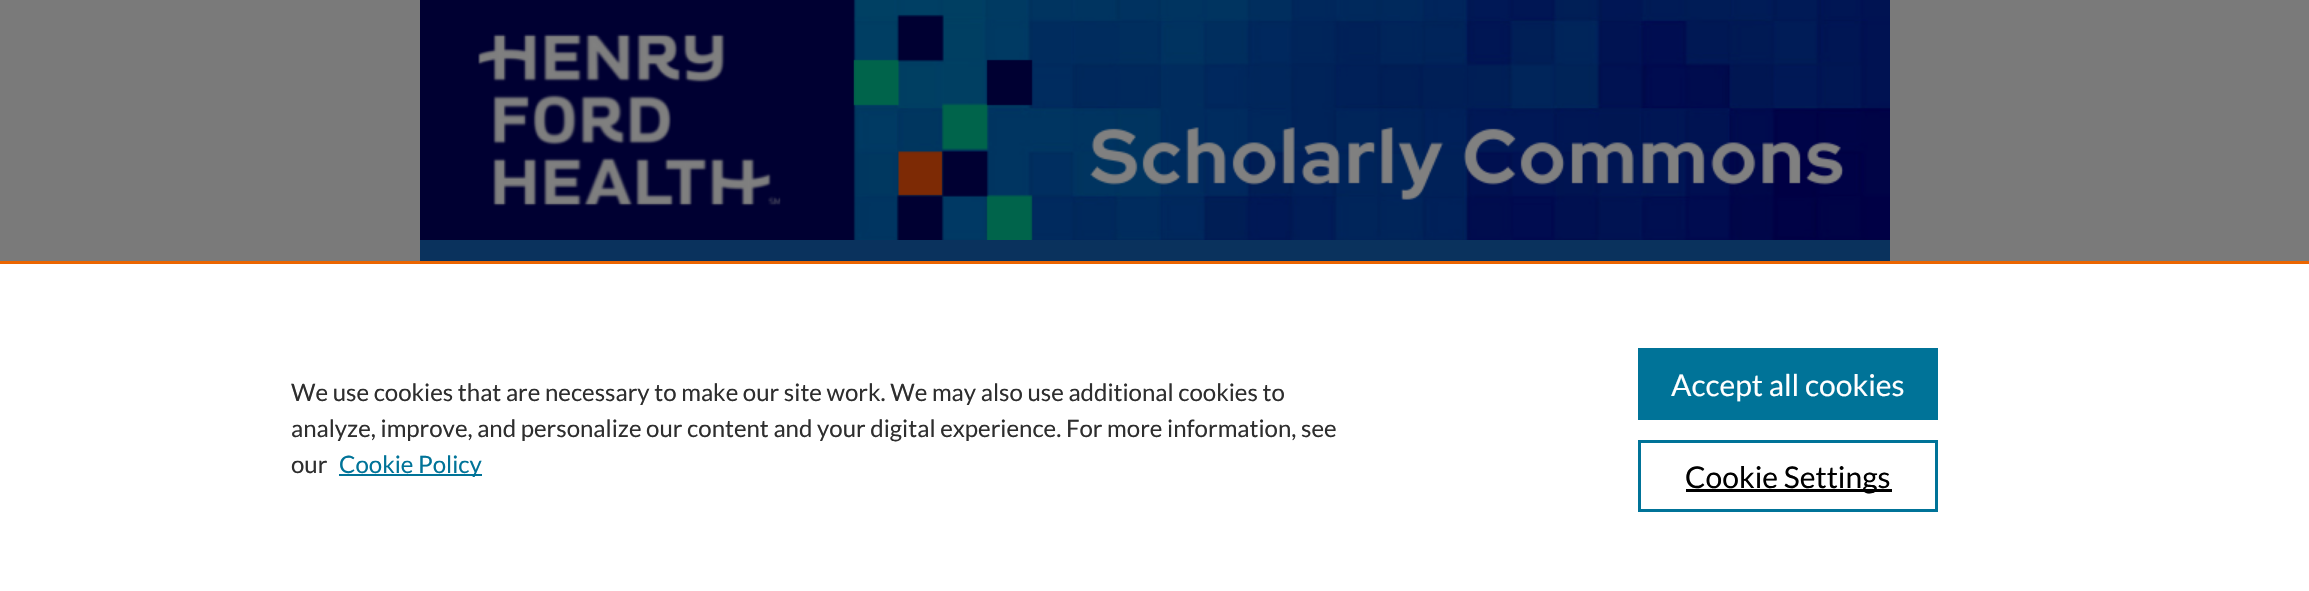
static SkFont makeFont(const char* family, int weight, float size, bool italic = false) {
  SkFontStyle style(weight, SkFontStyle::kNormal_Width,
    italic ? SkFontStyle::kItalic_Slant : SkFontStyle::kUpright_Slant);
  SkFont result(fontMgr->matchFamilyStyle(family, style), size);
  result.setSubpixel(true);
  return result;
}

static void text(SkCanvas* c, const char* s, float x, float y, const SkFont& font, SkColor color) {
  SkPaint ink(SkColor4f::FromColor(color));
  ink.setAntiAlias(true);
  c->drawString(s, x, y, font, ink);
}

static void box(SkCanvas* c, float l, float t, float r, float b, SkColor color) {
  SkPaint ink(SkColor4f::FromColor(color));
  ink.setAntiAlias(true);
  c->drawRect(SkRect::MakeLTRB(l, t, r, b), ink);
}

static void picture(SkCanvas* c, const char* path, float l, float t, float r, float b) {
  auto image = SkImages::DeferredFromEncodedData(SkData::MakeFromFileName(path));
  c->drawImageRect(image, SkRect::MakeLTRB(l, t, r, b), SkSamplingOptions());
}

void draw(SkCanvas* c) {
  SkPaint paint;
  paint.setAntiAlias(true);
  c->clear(0xff7a7a7a);
  picture(c, "img_01.png", 420, 0, 1890, 240);
  box(c, 853, 0, 854, 240, 0x80000032);
  box(c, 420, 240, 1890, 261, 0xff0a325d);
  box(c, 0, 264, 2309, 591, 0xffffffff);
  box(c, 0, 261, 2309, 264, 0xffeb6500);
  SkFont face1 = makeFont("Lato", 400, 24);
  text(c, "We use cookies that are necessary to make our site work. We may also use additional cookies to", 291, 401, face1, 0xff2e2e2e);
  text(c, "analyze, improve, and personalize our content and your digital experience. For more information, see", 291, 437, face1, 0xff2e2e2e);
  text(c, "our", 291, 473, face1, 0xff2e2e2e);
  box(c, 339, 474, 482, 476, 0xff007398);
  text(c, "Cookie Policy", 339, 473, face1, 0xff007398);
  box(c, 1638, 348, 1938, 420, 0xff007398);
  SkFont face2 = makeFont("Lato", 400, 30);
  text(c, "Accept all cookies", 1671, 396, face2, 0xffffffff);
  paint.setStyle(SkPaint::kStroke_Style);
  paint.setStrokeWidth(3);
  paint.setColor(0xff007398);
  c->drawRect(SkRect::MakeLTRB(1639.5f, 441.5f, 1936.5f, 510.5f), paint);
  box(c, 1686, 489, 1892, 492, 0xff000000);
  text(c, "Cookie Settings", 1685, 488, face2, 0xff000000);
}
